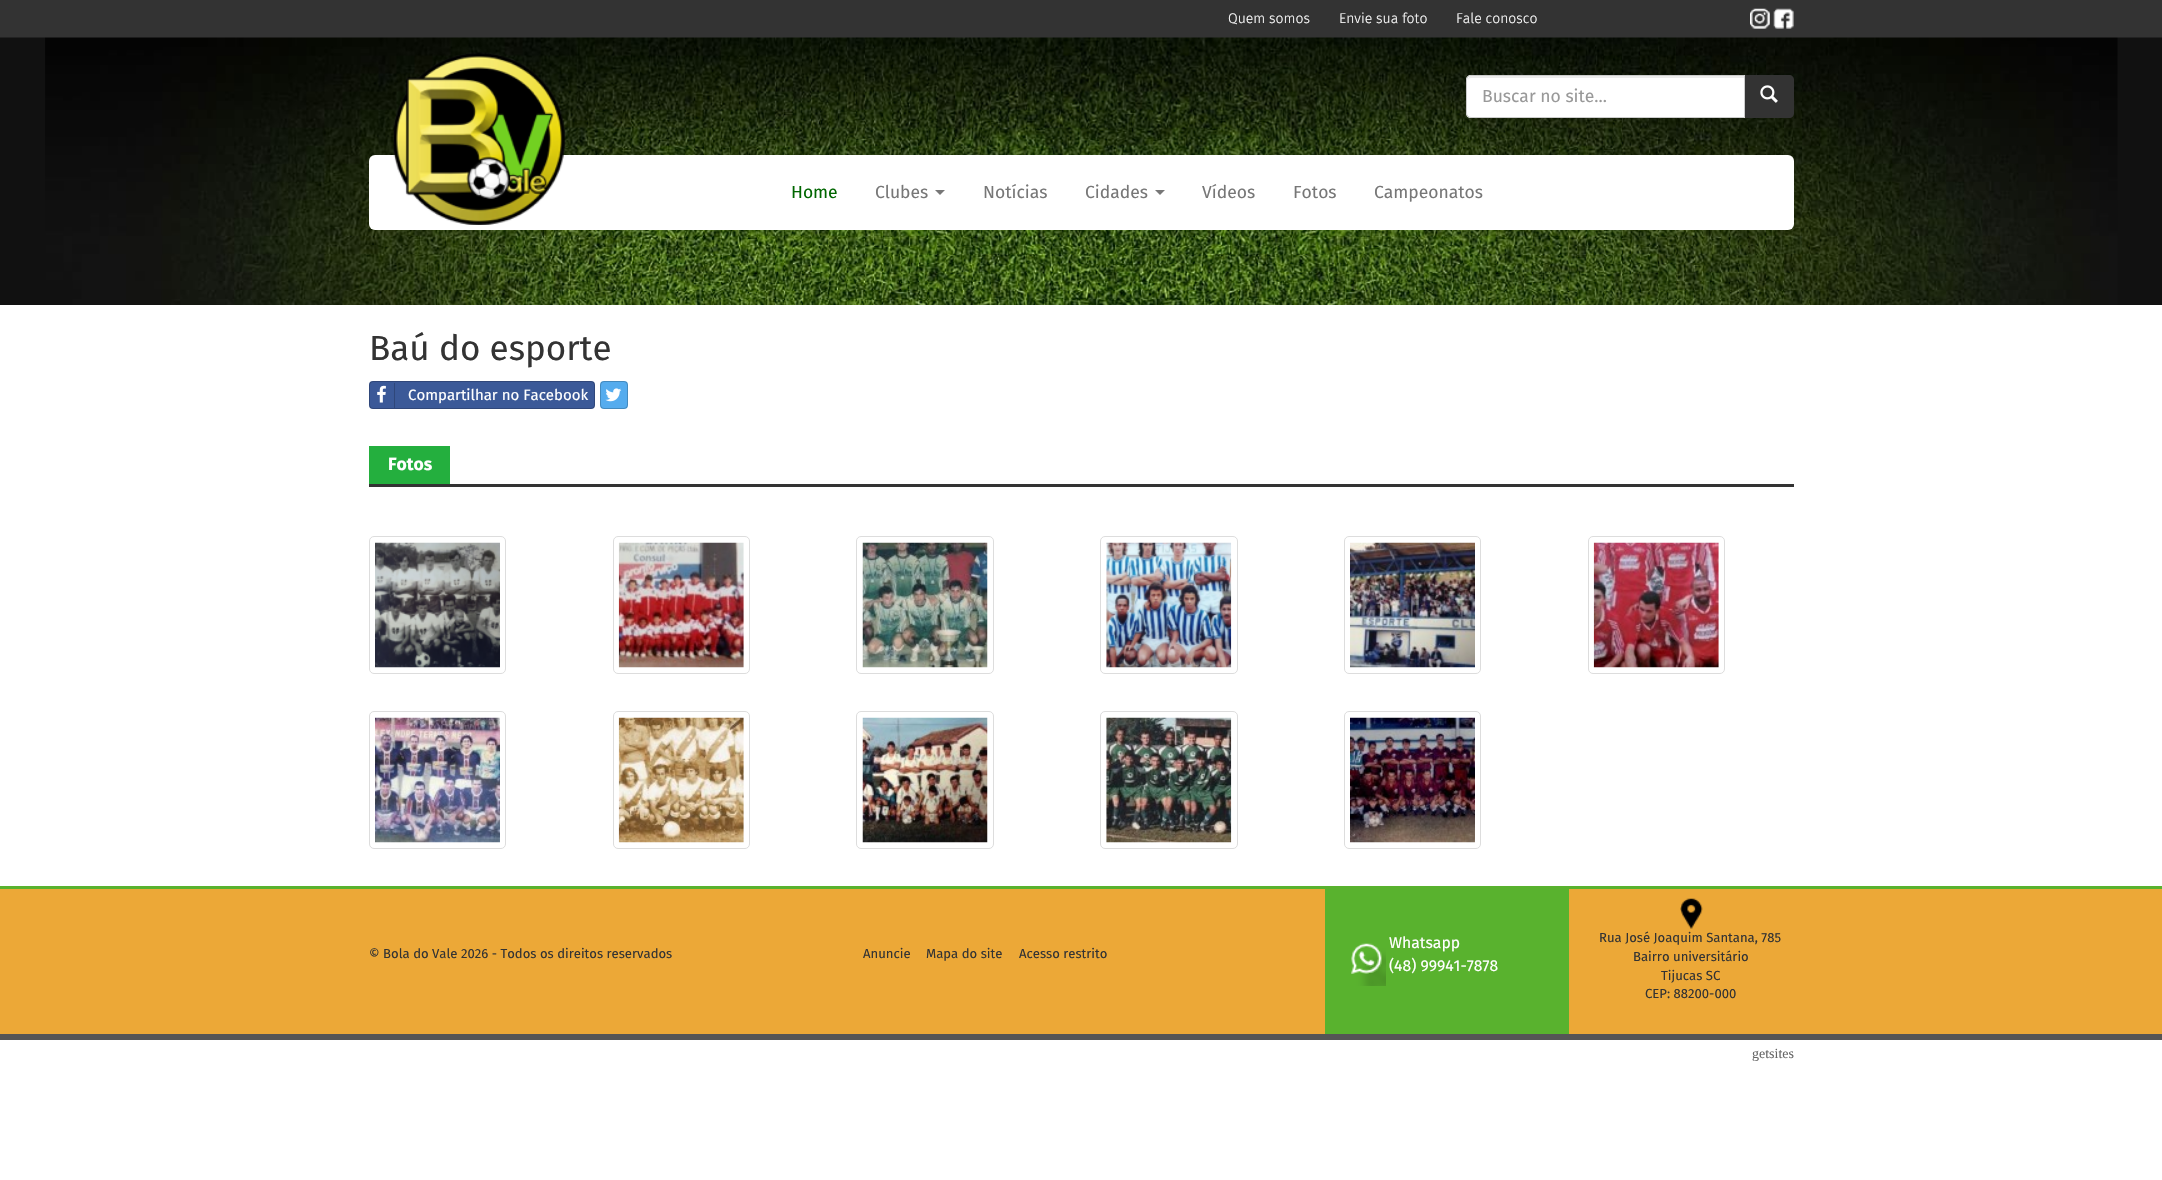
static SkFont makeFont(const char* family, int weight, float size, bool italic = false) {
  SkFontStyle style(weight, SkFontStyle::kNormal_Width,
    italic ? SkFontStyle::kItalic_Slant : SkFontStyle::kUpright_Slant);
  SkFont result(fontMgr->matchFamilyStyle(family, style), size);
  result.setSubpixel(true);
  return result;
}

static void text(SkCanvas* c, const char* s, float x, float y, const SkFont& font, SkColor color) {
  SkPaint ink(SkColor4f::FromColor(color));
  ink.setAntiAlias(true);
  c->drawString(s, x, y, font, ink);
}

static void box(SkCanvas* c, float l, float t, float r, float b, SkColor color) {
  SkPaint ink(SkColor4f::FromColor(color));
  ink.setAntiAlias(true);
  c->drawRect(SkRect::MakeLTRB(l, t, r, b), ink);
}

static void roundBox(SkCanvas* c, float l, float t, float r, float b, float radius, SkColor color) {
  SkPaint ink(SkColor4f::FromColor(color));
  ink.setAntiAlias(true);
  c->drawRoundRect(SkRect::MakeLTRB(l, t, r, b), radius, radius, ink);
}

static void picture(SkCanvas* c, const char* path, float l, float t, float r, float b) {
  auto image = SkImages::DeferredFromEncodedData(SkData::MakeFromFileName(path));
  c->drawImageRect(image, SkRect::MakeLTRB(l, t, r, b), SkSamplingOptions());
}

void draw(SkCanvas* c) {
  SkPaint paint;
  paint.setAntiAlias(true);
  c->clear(0xffffffff);
  box(c, 0, 0, 2162, 38, 0xff333333);
  SkFont face1 = makeFont("Fira Sans", 300, 14);
  text(c, "Quem somos", 1228, 23, face1, 0xffffffff);
  text(c, "Envie sua foto", 1339, 23, face1, 0xffffffff);
  text(c, "Fale conosco", 1456, 23, face1, 0xffffffff);
  picture(c, "img_01.png", 1750, 8, 1770, 29);
  picture(c, "img_02.png", 1773, 8, 1794, 29);
  picture(c, "img_03.png", 0, 37, 2162, 305);
  roundBox(c, 369, 155, 1794, 230, 6, 0xffffffff);
  picture(c, "img_04.png", 393, 52, 566, 225);
  paint.setColor(0xff333333);
  c->drawPath(SkPathBuilder().moveTo(1744, 75).lineTo(1789, 75).cubicTo(1792, 75, 1794, 77, 1794, 80).lineTo(1794, 113).cubicTo(1794, 116, 1792, 118, 1789, 118).lineTo(1744, 118).close().detach(), paint);
  paint.setColor(0xffffffff);
  c->drawPath(SkPathBuilder().moveTo(1471, 75).lineTo(1745, 75).lineTo(1745, 118).lineTo(1471, 118).cubicTo(1468, 118, 1466, 116, 1466, 113).lineTo(1466, 80).cubicTo(1466, 77, 1468, 75, 1471, 75).close().detach(), paint);
  paint.setColor(0xffececec);
  c->drawPath(SkPathBuilder().moveTo(1471, 78).lineTo(1744, 78).lineTo(1744, 76).lineTo(1472, 76).cubicTo(1469, 76, 1468, 78, 1468, 81).cubicTo(1468, 79, 1469, 78, 1471, 78).close().detach(), paint);
  paint.setStyle(SkPaint::kStroke_Style);
  paint.setStrokeWidth(1);
  paint.setColor(0xffcccccc);
  c->drawPath(SkPathBuilder().moveTo(1471, 75.5f).lineTo(1744.5f, 75.5f).lineTo(1744.5f, 117.5f).lineTo(1471, 117.5f).cubicTo(1468.5f, 117.5f, 1466.5f, 115.5f, 1466.5f, 113).lineTo(1466.5f, 80).cubicTo(1466.5f, 77.5f, 1468.5f, 75.5f, 1471, 75.5f).close().detach(), paint);
  SkFont face2 = makeFont("Fira Sans", 400, 17.5f);
  text(c, "Buscar no site...", 1482, 102, face2, 0xff999999);
  picture(c, "img_05.png", 1760, 85, 1778, 103);
  text(c, "Home", 791, 198, face2, 0xff006600);
  text(c, "Clubes", 875, 198, face2, 0xff777777);
  paint.setStyle(SkPaint::kFill_Style);
  paint.setColor(0xff777777);
  c->drawPath(SkPathBuilder().moveTo(935, 190).lineTo(945, 190).lineTo(940, 195).close().detach(), paint);
  text(c, "Notícias", 983, 198, face2, 0xff777777);
  text(c, "Cidades", 1085, 198, face2, 0xff777777);
  c->drawPath(SkPathBuilder().moveTo(1155, 190).lineTo(1165, 190).lineTo(1160, 195).close().detach(), paint);
  text(c, "Vídeos", 1202, 198, face2, 0xff777777);
  text(c, "Fotos", 1293, 198, face2, 0xff777777);
  text(c, "Campeonatos", 1374, 198, face2, 0xff777777);
  SkFont face3 = makeFont("Fira Sans", 400, 35);
  text(c, "Baú do esporte", 369, 360, face3, 0xff333333);
  roundBox(c, 369, 381, 595, 409, 4, 0xff3b5998);
  paint.setStyle(SkPaint::kStroke_Style);
  paint.setColor(0x33000000);
  c->drawRoundRect(SkRect::MakeLTRB(369.5f, 381.5f, 594.5f, 408.5f), 3.5f, 3.5f, paint);
  box(c, 394, 383, 395, 408, 0xff2f477a);
  picture(c, "img_06.png", 377, 385, 386, 403);
  SkFont face4 = makeFont("Fira Sans", 400, 15);
  text(c, "Compartilhar no Facebook", 408, 400, face4, 0xffffffff);
  roundBox(c, 600, 381, 628, 409, 4, 0xff55acee);
  c->drawRoundRect(SkRect::MakeLTRB(600.5f, 381.5f, 627.5f, 408.5f), 3.5f, 3.5f, paint);
  picture(c, "img_07.png", 605, 388, 622, 402);
  box(c, 369, 484, 1794, 487, 0xff333333);
  box(c, 369, 446, 450, 484, 0xff24af3e);
  SkFont face5 = makeFont("Fira Sans", 700, 17.5f);
  text(c, "Fotos", 388, 470, face5, 0xffffffff);
  paint.setColor(0xffdddddd);
  c->drawRoundRect(SkRect::MakeLTRB(369.5f, 536.5f, 505.5f, 673.5f), 4.5f, 4.5f, paint);
  picture(c, "img_08.png", 375, 542, 500, 668);
  c->drawRoundRect(SkRect::MakeLTRB(613.5f, 536.5f, 749.5f, 673.5f), 4.5f, 4.5f, paint);
  picture(c, "img_09.png", 618, 542, 744, 668);
  c->drawRoundRect(SkRect::MakeLTRB(856.5f, 536.5f, 993.5f, 673.5f), 4.5f, 4.5f, paint);
  picture(c, "img_10.png", 862, 542, 988, 668);
  c->drawRoundRect(SkRect::MakeLTRB(1100.5f, 536.5f, 1237.5f, 673.5f), 4.5f, 4.5f, paint);
  picture(c, "img_11.png", 1106, 542, 1232, 668);
  c->drawRoundRect(SkRect::MakeLTRB(1344.5f, 536.5f, 1480.5f, 673.5f), 4.5f, 4.5f, paint);
  picture(c, "img_12.png", 1350, 542, 1475, 668);
  c->drawRoundRect(SkRect::MakeLTRB(1588.5f, 536.5f, 1724.5f, 673.5f), 4.5f, 4.5f, paint);
  picture(c, "img_13.png", 1593, 542, 1719, 668);
  c->drawRoundRect(SkRect::MakeLTRB(369.5f, 711.5f, 505.5f, 848.5f), 4.5f, 4.5f, paint);
  picture(c, "img_14.png", 375, 717, 500, 843);
  c->drawRoundRect(SkRect::MakeLTRB(613.5f, 711.5f, 749.5f, 848.5f), 4.5f, 4.5f, paint);
  picture(c, "img_15.png", 618, 717, 744, 843);
  c->drawRoundRect(SkRect::MakeLTRB(856.5f, 711.5f, 993.5f, 848.5f), 4.5f, 4.5f, paint);
  picture(c, "img_16.png", 862, 717, 988, 843);
  c->drawRoundRect(SkRect::MakeLTRB(1100.5f, 711.5f, 1237.5f, 848.5f), 4.5f, 4.5f, paint);
  picture(c, "img_17.png", 1106, 717, 1232, 843);
  c->drawRoundRect(SkRect::MakeLTRB(1344.5f, 711.5f, 1480.5f, 848.5f), 4.5f, 4.5f, paint);
  picture(c, "img_18.png", 1350, 717, 1475, 843);
  box(c, 0, 889, 2162, 1034, 0xffeca837);
  box(c, 0, 886, 2162, 889, 0xff59b22e);
  box(c, 0, 1034, 2162, 1040, 0xff555555);
  SkFont face6 = makeFont("Fira Sans", 400, 13.1f);
  text(c, "© Bola do Vale 2026 - Todos os direitos reservados", 369, 958, face6, 0xff333333);
  text(c, "Anuncie", 863, 958, face6, 0xff333333);
  text(c, "Mapa do site", 926, 958, face6, 0xff333333);
  text(c, "Acesso restrito", 1019, 958, face6, 0xff333333);
  box(c, 1325, 889, 1569, 1034, 0xff59b22e);
  picture(c, "img_19.png", 1351, 943, 1386, 986);
  SkFont face7 = makeFont("Fira Sans", 400, 15.75f);
  text(c, "Whatsapp", 1389, 948, face7, 0xffffffff);
  text(c, "(48) 99941-7878", 1389, 971, face7, 0xffffffff);
  picture(c, "img_20.png", 1680, 898, 1703, 929);
  text(c, "Rua José Joaquim Santana, 785", 1599, 942, face6, 0xff333333);
  text(c, "Bairro universitário", 1633, 961, face6, 0xff333333);
  text(c, "Tijucas SC", 1661, 980, face6, 0xff333333);
  text(c, "CEP: 88200-000", 1645, 998, face6, 0xff333333);
  SkFont face8 = makeFont("Liberation Serif", 400, 14);
  text(c, "getsites", 1752, 1058, face8, 0xff666666);
}
